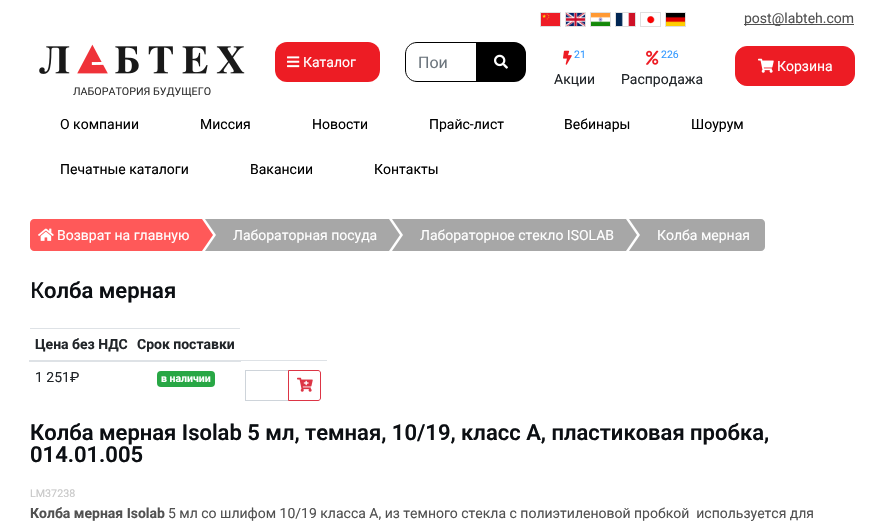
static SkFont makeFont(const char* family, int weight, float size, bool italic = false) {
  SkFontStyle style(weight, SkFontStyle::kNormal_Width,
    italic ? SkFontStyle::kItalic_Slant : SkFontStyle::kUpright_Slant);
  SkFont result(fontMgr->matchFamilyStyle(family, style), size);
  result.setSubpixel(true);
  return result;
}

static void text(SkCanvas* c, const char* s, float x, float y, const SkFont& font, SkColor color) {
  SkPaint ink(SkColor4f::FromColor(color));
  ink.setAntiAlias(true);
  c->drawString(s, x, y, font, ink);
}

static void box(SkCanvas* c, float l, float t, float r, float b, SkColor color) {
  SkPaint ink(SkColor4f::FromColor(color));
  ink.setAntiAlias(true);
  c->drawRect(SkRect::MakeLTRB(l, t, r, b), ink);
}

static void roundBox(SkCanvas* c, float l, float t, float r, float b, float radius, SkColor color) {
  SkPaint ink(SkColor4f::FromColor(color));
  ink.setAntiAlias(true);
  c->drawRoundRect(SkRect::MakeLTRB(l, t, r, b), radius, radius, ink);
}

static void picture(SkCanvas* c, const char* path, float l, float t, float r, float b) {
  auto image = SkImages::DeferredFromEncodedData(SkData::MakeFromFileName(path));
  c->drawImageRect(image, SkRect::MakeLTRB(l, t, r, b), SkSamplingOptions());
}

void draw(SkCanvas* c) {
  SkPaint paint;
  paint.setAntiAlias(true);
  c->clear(0xffffffff);
  paint.setStyle(SkPaint::kStroke_Style);
  paint.setStrokeWidth(1);
  paint.setColor(0xffdfdfdf);
  c->drawRect(SkRect::MakeLTRB(540.5f, 12.5f, 560.5f, 26.5f), paint);
  c->drawRect(SkRect::MakeLTRB(565.5f, 12.5f, 585.5f, 26.5f), paint);
  c->drawRect(SkRect::MakeLTRB(590.5f, 12.5f, 610.5f, 26.5f), paint);
  c->drawRect(SkRect::MakeLTRB(615.5f, 12.5f, 635.5f, 26.5f), paint);
  c->drawRect(SkRect::MakeLTRB(640.5f, 12.5f, 660.5f, 26.5f), paint);
  c->drawRect(SkRect::MakeLTRB(665.5f, 12.5f, 685.5f, 26.5f), paint);
  picture(c, "img_01.png", 541, 13, 560, 26);
  picture(c, "img_02.png", 566, 13, 585, 26);
  picture(c, "img_03.png", 591, 13, 610, 26);
  picture(c, "img_04.png", 616, 13, 635, 26);
  picture(c, "img_05.png", 647, 16, 655, 24);
  picture(c, "img_06.png", 666, 13, 685, 26);
  box(c, 744, 24, 854, 25, 0xff515151);
  SkFont face1 = makeFont("Roboto", 400, 14);
  text(c, "post@labteh.com", 744, 23, face1, 0xff515151);
  roundBox(c, 275, 42, 380, 82, 12, 0xffed1c24);
  picture(c, "img_07.png", 287, 56, 300, 68);
  text(c, "Каталог", 303, 67, face1, 0xffffffff);
  paint.setStyle(SkPaint::kFill_Style);
  paint.setColor(0xff000000);
  c->drawPath(SkPathBuilder().moveTo(477, 43).lineTo(514, 43).cubicTo(520, 43, 525, 48, 525, 54).lineTo(525, 70).cubicTo(525, 76, 520, 81, 514, 81).lineTo(477, 81).close().detach(), paint);
  paint.setStyle(SkPaint::kStroke_Style);
  paint.setStrokeWidth(2);
  c->drawPath(SkPathBuilder().moveTo(477, 43).lineTo(514, 43).cubicTo(520, 43, 525, 48, 525, 54).lineTo(525, 70).cubicTo(525, 76, 520, 81, 514, 81).lineTo(477, 81).close().detach(), paint);
  paint.setStrokeWidth(1);
  c->drawPath(SkPathBuilder().moveTo(417, 42.5f).lineTo(476.5f, 42.5f).lineTo(476.5f, 81.5f).lineTo(417, 81.5f).cubicTo(410.5f, 81.5f, 405.5f, 76.5f, 405.5f, 70).lineTo(405.5f, 54).cubicTo(405.5f, 47.5f, 410.5f, 42.5f, 417, 42.5f).close().detach(), paint);
  SkFont face2 = makeFont("Roboto", 400, 16);
  text(c, "Пои", 418, 68, face2, 0xff6c757d);
  picture(c, "img_08.png", 494, 54, 508, 69);
  picture(c, "img_09.png", 563, 50, 572, 65);
  SkFont face3 = makeFont("Roboto", 400, 10.5f);
  text(c, "21", 574, 58, face3, 0xff3399ff);
  text(c, "Акции", 554, 84, face1, 0xff212529);
  picture(c, "img_10.png", 646, 50, 659, 65);
  text(c, "226", 661, 58, face3, 0xff3399ff);
  text(c, "Распродажа", 621, 84, face1, 0xff212529);
  paint.setStyle(SkPaint::kFill_Style);
  paint.setColor(0xffed1c24);
  c->drawRoundRect(SkRect::MakeLTRB(735.5f, 46.5f, 854.5f, 85.5f), 11.5f, 11.5f, paint);
  paint.setStyle(SkPaint::kStroke_Style);
  c->drawRoundRect(SkRect::MakeLTRB(735.5f, 46.5f, 854.5f, 85.5f), 11.5f, 11.5f, paint);
  picture(c, "img_11.png", 758, 58, 774, 73);
  text(c, "Корзина", 777, 71, face1, 0xffffffff);
  picture(c, "img_12.png", 39, 44, 245, 74);
  SkFont face4 = makeFont("Roboto", 400, 10.7f);
  text(c, "ЛАБОРАТОРИЯ БУДУЩЕГО", 73, 95, face4, 0xff323232);
  text(c, "О компании", 60, 129, face1, 0xff000000);
  text(c, "Миссия", 200, 129, face1, 0xff000000);
  text(c, "Новости", 312, 129, face1, 0xff000000);
  text(c, "Прайс-лист", 429, 129, face1, 0xff000000);
  text(c, "Вебинары", 564, 129, face1, 0xff000000);
  text(c, "Шоурум", 691, 129, face1, 0xff000000);
  text(c, "Печатные каталоги", 60, 174, face1, 0xff000000);
  text(c, "Вакансии", 250, 174, face1, 0xff000000);
  text(c, "Контакты", 374, 174, face1, 0xff000000);
  paint.setStyle(SkPaint::kFill_Style);
  paint.setColor(0xffff5959);
  c->drawPath(SkPathBuilder().moveTo(34, 219).lineTo(202, 219).lineTo(202, 251).lineTo(34, 251).cubicTo(32, 251, 30, 249, 30, 247).lineTo(30, 223).cubicTo(30, 221, 32, 219, 34, 219).close().detach(), paint);
  picture(c, "img_13.png", 38, 228, 54, 241);
  text(c, "Возврат на главную", 57, 240, face1, 0xffffffff);
  c->drawPath(SkPathBuilder().moveTo(202, 251).lineTo(202, 219).lineTo(213, 235).close().detach(), paint);
  box(c, 227, 219, 389, 251, 0xffa7a7a7);
  paint.setColor(0xffa7a7a7);
  c->drawPath(SkPathBuilder().moveTo(205, 219).lineTo(227, 219).lineTo(216, 235).close().detach(), paint);
  box(c, 216, 219, 227, 251, 0xffa7a7a7);
  c->drawPath(SkPathBuilder().moveTo(227, 251).lineTo(205, 251).lineTo(216, 235).close().detach(), paint);
  text(c, "Лабораторная посуда", 233, 240, face1, 0xffffffff);
  c->drawPath(SkPathBuilder().moveTo(389, 251).lineTo(389, 219).lineTo(400, 235).close().detach(), paint);
  box(c, 414, 219, 626, 251, 0xffa7a7a7);
  c->drawPath(SkPathBuilder().moveTo(392, 219).lineTo(414, 219).lineTo(403, 235).close().detach(), paint);
  box(c, 403, 219, 414, 251, 0xffa7a7a7);
  c->drawPath(SkPathBuilder().moveTo(414, 251).lineTo(392, 251).lineTo(403, 235).close().detach(), paint);
  text(c, "Лабораторное стекло ISOLAB", 420, 240, face1, 0xffffffff);
  c->drawPath(SkPathBuilder().moveTo(626, 251).lineTo(626, 219).lineTo(637, 235).close().detach(), paint);
  c->drawPath(SkPathBuilder().moveTo(649, 219).lineTo(761, 219).cubicTo(763, 219, 765, 221, 765, 223).lineTo(765, 247).cubicTo(765, 249, 763, 251, 761, 251).lineTo(649, 251).close().detach(), paint);
  c->drawPath(SkPathBuilder().moveTo(629, 219).lineTo(651, 219).lineTo(640, 235).close().detach(), paint);
  box(c, 640, 222, 649, 251, 0xffa7a7a7);
  c->drawPath(SkPathBuilder().moveTo(651, 251).lineTo(629, 251).lineTo(640, 235).close().detach(), paint);
  text(c, "Колба мерная", 657, 240, face1, 0xffffffff);
  SkFont face5 = makeFont("Noto Sans", 500, 22);
  text(c, "К", 30, 298, face5, 0xff0c0f13);
  SkFont face6 = makeFont("Roboto", 600, 22);
  text(c, "олба мерная", 44, 298, face6, 0xff0c0f13);
  SkFont face7 = makeFont("Roboto", 700, 14);
  text(c, "Цена без НДС", 35, 349, face7, 0xff212529);
  box(c, 30, 328, 240, 329, 0xffdee2e6);
  box(c, 239, 360, 327, 361, 0xffdee2e6);
  box(c, 29, 360, 241, 362, 0xffdee2e6);
  text(c, "Срок поставки", 137, 349, face7, 0xff212529);
  text(c, "1 251₽", 35, 382, face1, 0xff212529);
  roundBox(c, 157, 371, 215, 387, 4, 0xff28a745);
  SkFont face8 = makeFont("Roboto", 700, 10.5f);
  text(c, "в наличии", 161, 382, face8, 0xffffffff);
  paint.setStyle(SkPaint::kStroke_Style);
  paint.setColor(0xffced4da);
  c->drawRect(SkRect::MakeLTRB(245.5f, 370.5f, 288.5f, 400.5f), paint);
  paint.setColor(0xffdc3545);
  c->drawPath(SkPathBuilder().moveTo(288.5f, 370.5f).lineTo(318, 370.5f).cubicTo(319.5f, 370.5f, 320.5f, 371.5f, 320.5f, 373).lineTo(320.5f, 398).cubicTo(320.5f, 399.5f, 319.5f, 400.5f, 318, 400.5f).lineTo(288.5f, 400.5f).close().detach(), paint);
  picture(c, "img_14.png", 297, 377, 313, 392);
  text(c, "Колба мерная Isolab 5 мл, темная, 10/19, класс А, пластиковая пробка,", 30, 440, face6, 0xff0c0f13);
  text(c, "014.01.005", 30, 462, face6, 0xff0c0f13);
  text(c, "LM37238", 30, 497, face4, 0xffc7c7c7);
  text(c, "Колба мерная Isolab", 30, 518, face7, 0xff515151);
  text(c, "5 мл со шлифом 10/19 класса А, из темного стекла с полиэтиленовой пробкой  используется для", 168, 518, face1, 0xff515151);
}
